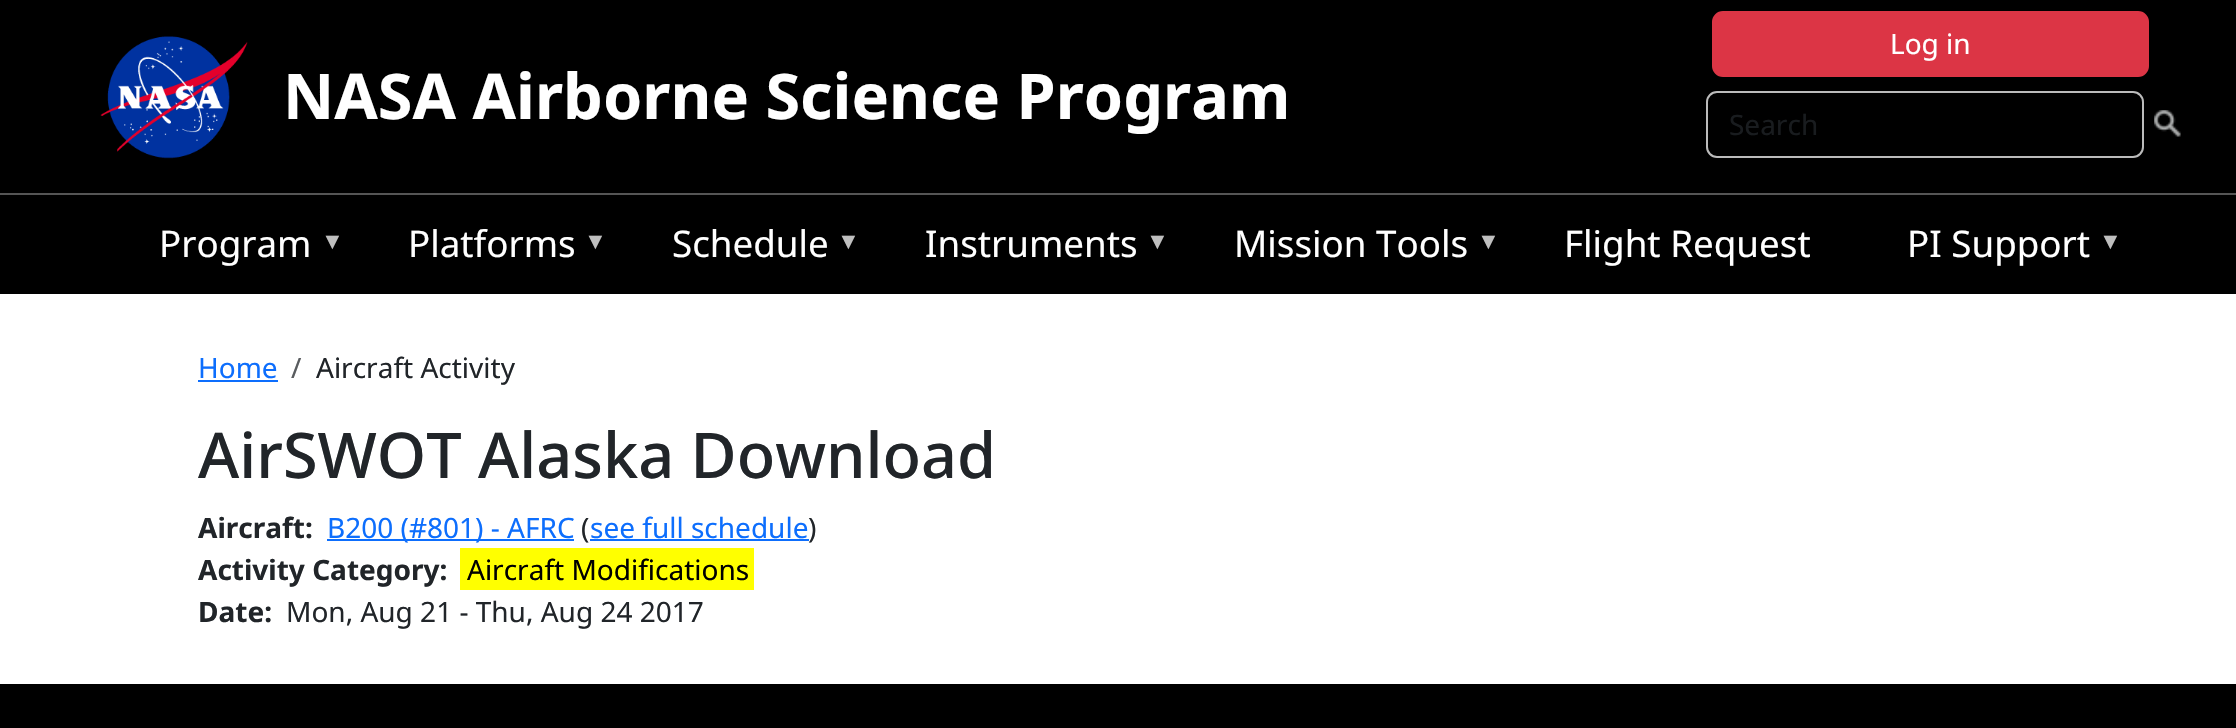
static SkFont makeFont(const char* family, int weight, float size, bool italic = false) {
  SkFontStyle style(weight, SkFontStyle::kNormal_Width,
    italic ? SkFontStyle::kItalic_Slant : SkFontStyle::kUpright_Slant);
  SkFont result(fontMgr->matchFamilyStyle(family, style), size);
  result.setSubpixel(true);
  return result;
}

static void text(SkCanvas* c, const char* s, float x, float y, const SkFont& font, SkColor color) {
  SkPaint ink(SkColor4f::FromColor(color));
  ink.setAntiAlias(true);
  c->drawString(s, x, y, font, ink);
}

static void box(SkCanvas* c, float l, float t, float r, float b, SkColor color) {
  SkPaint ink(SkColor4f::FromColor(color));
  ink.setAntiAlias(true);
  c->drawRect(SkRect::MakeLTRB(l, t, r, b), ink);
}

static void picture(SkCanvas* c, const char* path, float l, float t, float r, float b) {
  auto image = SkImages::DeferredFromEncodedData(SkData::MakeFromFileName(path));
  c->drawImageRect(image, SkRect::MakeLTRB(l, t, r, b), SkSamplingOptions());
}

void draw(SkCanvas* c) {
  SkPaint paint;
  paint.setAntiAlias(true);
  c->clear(0xffffffff);
  box(c, 0, 0, 2236, 193, 0xff000000);
  paint.setColor(0xffdc3545);
  c->drawRoundRect(SkRect::MakeLTRB(1713, 12, 2148, 76), 10, 10, paint);
  paint.setStyle(SkPaint::kStroke_Style);
  paint.setStrokeWidth(2);
  c->drawRoundRect(SkRect::MakeLTRB(1713, 12, 2148, 76), 10, 10, paint);
  SkFont face1 = makeFont("Noto Sans", 400, 28);
  text(c, "Log in", 1890, 54, face1, 0xffffffff);
  picture(c, "img_01.png", 100, 36, 248, 159);
  SkFont face2 = makeFont("Noto Sans", 700, 63);
  text(c, "NASA Airborne Science Program", 283, 119, face2, 0xffffffff);
  paint.setColor(0xffbbbbbb);
  c->drawRoundRect(SkRect::MakeLTRB(1707, 92, 2143, 157), 10, 10, paint);
  text(c, "Search", 1729, 135, face1, 0xff191c1f);
  picture(c, "img_02.png", 2154, 110, 2181, 137);
  box(c, 0, 195, 2236, 294, 0xff000000);
  box(c, 0, 193, 2236, 195, 0xff555555);
  SkFont face3 = makeFont("Noto Sans", 400, 36.75f);
  text(c, "Program", 159, 257, face3, 0xffffffff);
  SkFont face4 = makeFont("Liberation Sans", 400, 23);
  text(c, "▼", 321, 249, face4, 0xffbfbfbf);
  text(c, "Platforms", 408, 257, face3, 0xffffffff);
  text(c, "▼", 584, 249, face4, 0xffbfbfbf);
  text(c, "Schedule", 672, 257, face3, 0xffffffff);
  text(c, "▼", 837, 249, face4, 0xffbfbfbf);
  text(c, "Instruments", 925, 257, face3, 0xffffffff);
  text(c, "▼", 1146, 249, face4, 0xffbfbfbf);
  text(c, "Mission Tools", 1234, 257, face3, 0xffffffff);
  text(c, "▼", 1477, 249, face4, 0xffbfbfbf);
  text(c, "Flight Request", 1564, 257, face3, 0xffffffff);
  text(c, "PI Support", 1907, 257, face3, 0xffffffff);
  text(c, "▼", 2099, 249, face4, 0xffbfbfbf);
  text(c, "Home", 198, 378, face1, 0xff0d6efd);
  box(c, 198, 380, 278, 382, 0xff0d6efd);
  text(c, "/", 291, 378, face1, 0xff595c5f);
  text(c, "Aircraft Activity", 316, 378, face1, 0xff212529);
  SkFont face5 = makeFont("Noto Sans", 500, 63);
  text(c, "AirSWOT Alaska Download", 198, 478, face5, 0xff212529);
  SkFont face6 = makeFont("Noto Sans", 700, 28);
  text(c, "Aircraft:", 198, 538, face6, 0xff212529);
  box(c, 327, 539, 574, 541, 0xff0d6efd);
  text(c, "B200 (#801) - AFRC", 327, 538, face1, 0xff0d6efd);
  text(c, "(", 581, 538, face1, 0xff212529);
  text(c, "see full schedule", 590, 538, face1, 0xff0d6efd);
  box(c, 590, 539, 809, 541, 0xff0d6efd);
  text(c, ")", 808, 538, face1, 0xff212529);
  text(c, "Activity Category:", 198, 580, face6, 0xff212529);
  box(c, 460, 548, 754, 590, 0xffffff00);
  text(c, "Aircraft Modifications", 467, 580, face1, 0xff000000);
  text(c, "Date:", 198, 622, face6, 0xff212529);
  text(c, "Mon, Aug 21 - Thu, Aug 24 2017", 286, 622, face1, 0xff212529);
  box(c, 0, 684, 2236, 728, 0xff000000);
}
